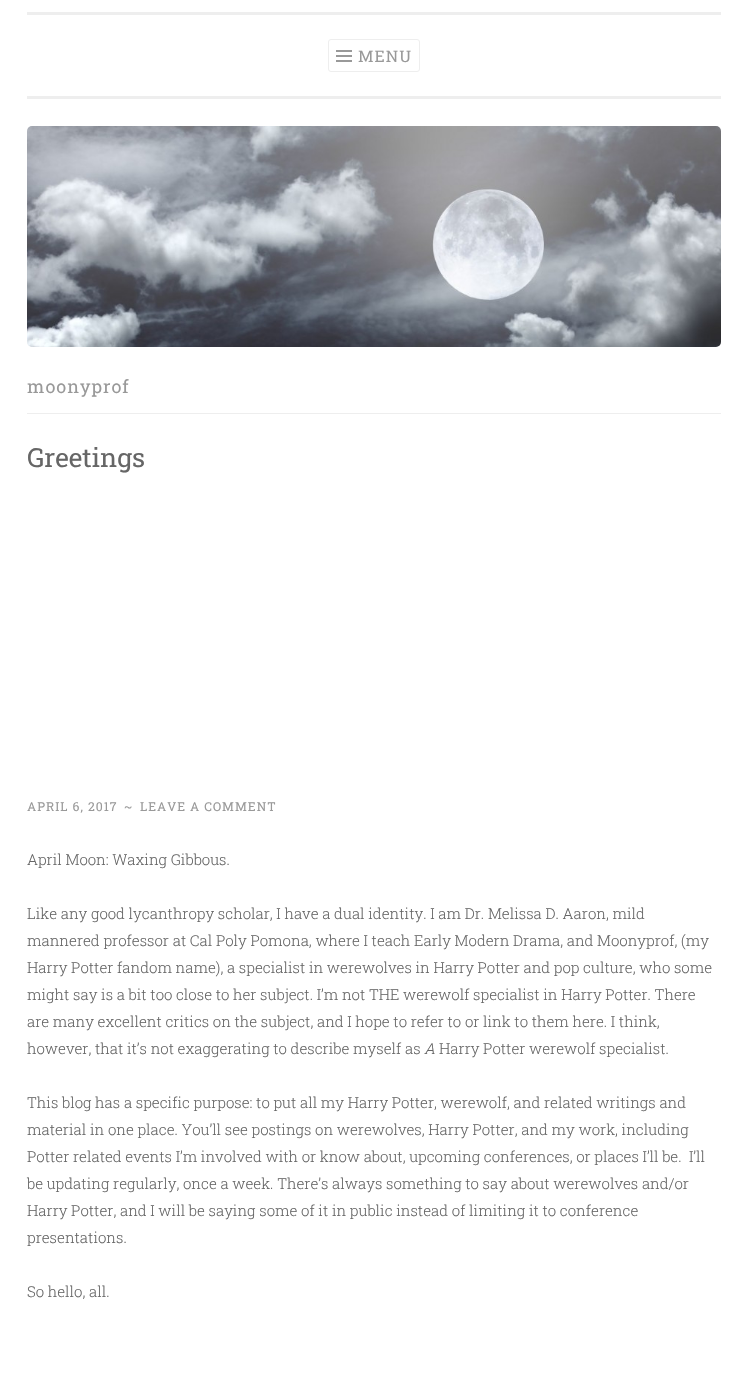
static SkFont makeFont(const char* family, int weight, float size, bool italic = false) {
  SkFontStyle style(weight, SkFontStyle::kNormal_Width,
    italic ? SkFontStyle::kItalic_Slant : SkFontStyle::kUpright_Slant);
  SkFont result(fontMgr->matchFamilyStyle(family, style), size);
  result.setSubpixel(true);
  return result;
}

static void text(SkCanvas* c, const char* s, float x, float y, const SkFont& font, SkColor color) {
  SkPaint ink(SkColor4f::FromColor(color));
  ink.setAntiAlias(true);
  c->drawString(s, x, y, font, ink);
}

static void spacedText(SkCanvas* c, const char* s, float x, float y, const SkFont& font, const SkPaint& ink, float letter, float word) {
  std::vector<SkGlyphID> glyphs(font.countText(s, strlen(s), SkTextEncoding::kUTF8));
  std::vector<float> xs(glyphs.size());
  font.textToGlyphs(s, strlen(s), SkTextEncoding::kUTF8, glyphs);
  font.getXPos(glyphs, xs, x);
  float extra = 0;
  for (size_t i = 0; i < glyphs.size(); i++) {
    xs[i] += extra;
    extra += letter + word * (glyphs[i] == font.unicharToGlyph(' '));
  }
  c->drawTextBlob(SkTextBlob::MakeFromPosHGlyphs(glyphs, xs, y, font), 0, 0, ink);
}

static void box(SkCanvas* c, float l, float t, float r, float b, SkColor color) {
  SkPaint ink(SkColor4f::FromColor(color));
  ink.setAntiAlias(true);
  c->drawRect(SkRect::MakeLTRB(l, t, r, b), ink);
}

static void picture(SkCanvas* c, const char* path, float l, float t, float r, float b) {
  auto image = SkImages::DeferredFromEncodedData(SkData::MakeFromFileName(path));
  c->drawImageRect(image, SkRect::MakeLTRB(l, t, r, b), SkSamplingOptions());
}

void draw(SkCanvas* c) {
  SkPaint paint;
  paint.setAntiAlias(true);
  c->clear(0xffffffff);
  box(c, 27, 96, 721, 99, 0xffeeeeee);
  box(c, 27, 12, 721, 15, 0xffeeeeee);
  paint.setStyle(SkPaint::kStroke_Style);
  paint.setStrokeWidth(1);
  paint.setColor(0xffeeeeee);
  c->drawRoundRect(SkRect::MakeLTRB(328.5f, 39.5f, 419.5f, 71.5f), 2.5f, 2.5f, paint);
  picture(c, "img_01.png", 336, 50, 352, 62);
  SkFont face1 = makeFont("Roboto Slab", 400, 16);
  paint.setStyle(SkPaint::kFill_Style);
  paint.setColor(0xff999999);
  spacedText(c, "MENU", 358, 62, face1, paint, 1, 0);
  picture(c, "img_02.png", 27, 126, 721, 347);
  box(c, 27, 413, 721, 414, 0xffeeeeee);
  SkFont face2 = makeFont("Roboto Slab", 400, 18);
  spacedText(c, "moonyprof", 27, 393, face2, paint, 1, 0);
  SkFont face3 = makeFont("Roboto Slab", 400, 26.25f);
  text(c, "Greetings", 27, 467, face3, 0xff666666);
  SkFont face4 = makeFont("Roboto Slab", 400, 12.25f);
  spacedText(c, "APRIL 6, 2017", 27, 811, face4, paint, 1, 0);
  spacedText(c, "~", 124, 811, face4, paint, 1, 0);
  spacedText(c, "LEAVE A COMMENT", 140, 811, face4, paint, 1, 0);
  SkFont face5 = makeFont("Roboto Slab", 300, 15);
  text(c, "April Moon: Waxing Gibbous.", 27, 865, face5, 0xff666666);
  text(c, "Like any good lycanthropy scholar, I have a dual identity. I am Dr. Melissa D. Aaron, mild", 27, 919, face5, 0xff666666);
  text(c, "mannered professor at Cal Poly Pomona, where I teach Early Modern Drama, and Moonyprof, (my", 27, 946, face5, 0xff666666);
  text(c, "Harry Potter fandom name), a specialist in werewolves in Harry Potter and pop culture, who some", 27, 973, face5, 0xff666666);
  text(c, "might say is a bit too close to her subject. I’m not THE werewolf specialist in Harry Potter. There", 27, 1000, face5, 0xff666666);
  text(c, "are many excellent critics on the subject, and I hope to refer to or link to them here. I think,", 27, 1027, face5, 0xff666666);
  text(c, "however, that it’s not exaggerating to describe myself as", 27, 1054, face5, 0xff666666);
  SkFont face6 = makeFont("Roboto Slab", 300, 15, true);
  text(c, "A", 424, 1054, face6, 0xff666666);
  text(c, "Harry Potter werewolf specialist.", 439, 1054, face5, 0xff666666);
  text(c, "This blog has a specific purpose: to put all my Harry Potter, werewolf, and related writings and", 27, 1108, face5, 0xff666666);
  text(c, "material in one place. You’ll see postings on werewolves, Harry Potter, and my work, including", 27, 1135, face5, 0xff666666);
  text(c, "Potter related events I’m involved with or know about, upcoming conferences, or places I’ll be.  I’ll", 27, 1162, face5, 0xff666666);
  text(c, "be updating regularly, once a week. There’s always something to say about werewolves and/or", 27, 1189, face5, 0xff666666);
  text(c, "Harry Potter, and I will be saying some of it in public instead of limiting it to conference", 27, 1216, face5, 0xff666666);
  text(c, "presentations.", 27, 1243, face5, 0xff666666);
  text(c, "So hello, all.", 27, 1297, face5, 0xff666666);
}
